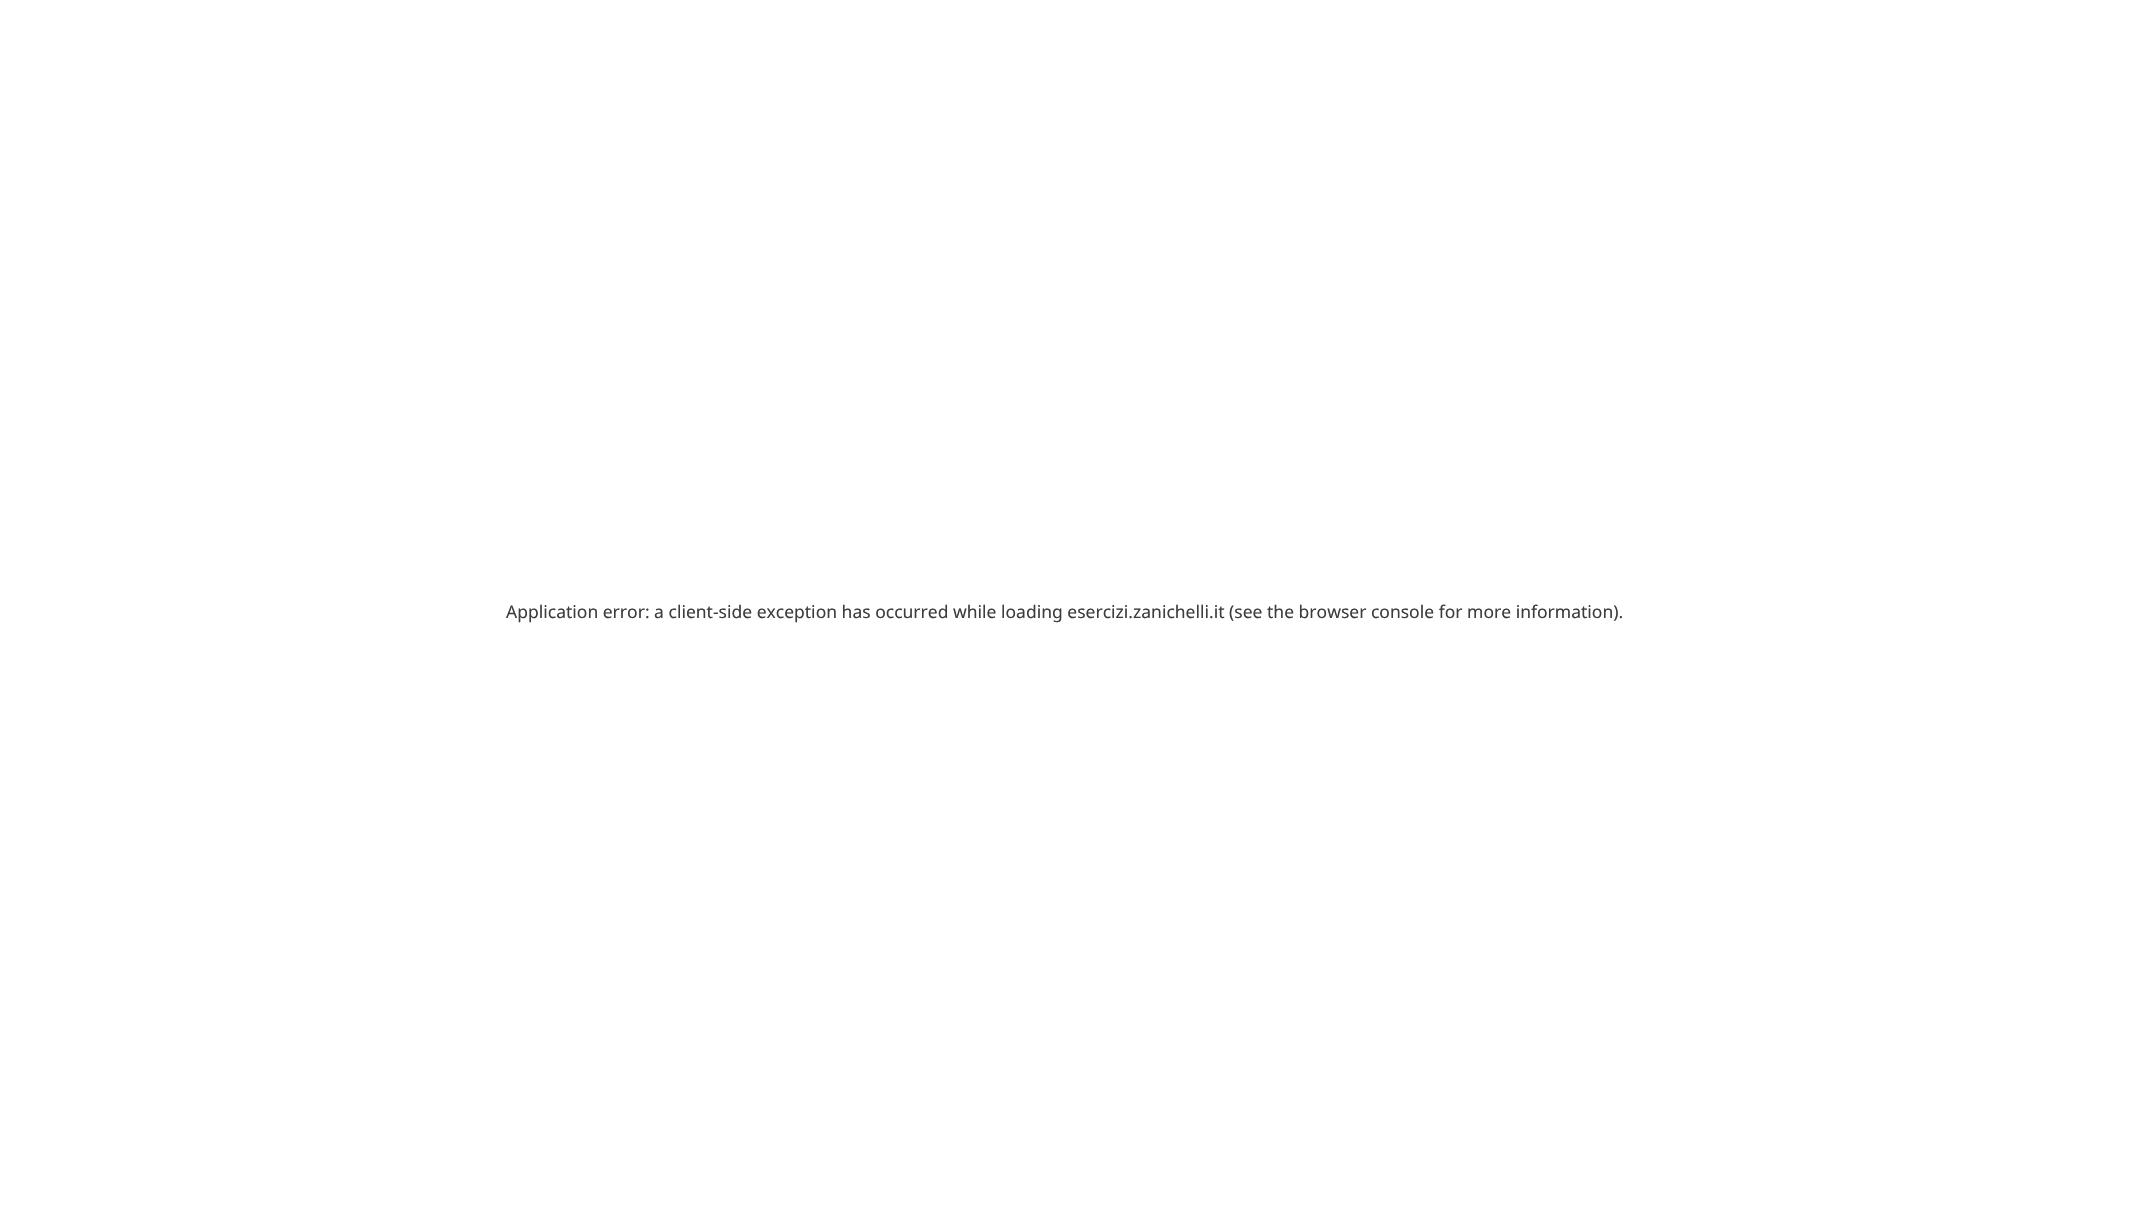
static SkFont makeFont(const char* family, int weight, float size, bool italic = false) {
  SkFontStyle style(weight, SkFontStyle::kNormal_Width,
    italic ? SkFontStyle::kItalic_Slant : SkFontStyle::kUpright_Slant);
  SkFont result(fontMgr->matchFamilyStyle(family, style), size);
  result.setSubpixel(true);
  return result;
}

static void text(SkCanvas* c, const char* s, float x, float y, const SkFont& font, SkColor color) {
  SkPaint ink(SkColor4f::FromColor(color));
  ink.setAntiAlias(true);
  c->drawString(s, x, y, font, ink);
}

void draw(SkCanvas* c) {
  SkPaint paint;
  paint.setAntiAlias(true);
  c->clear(0xffffffff);
  SkFont face1 = makeFont("Noto Sans", 400, 17.5f);
  text(c, "Application error: a client-side exception has occurred while loading esercizi.zanichelli.it (see the browser console for more information).", 506, 618, face1, 0xff3d3d3d);
}
